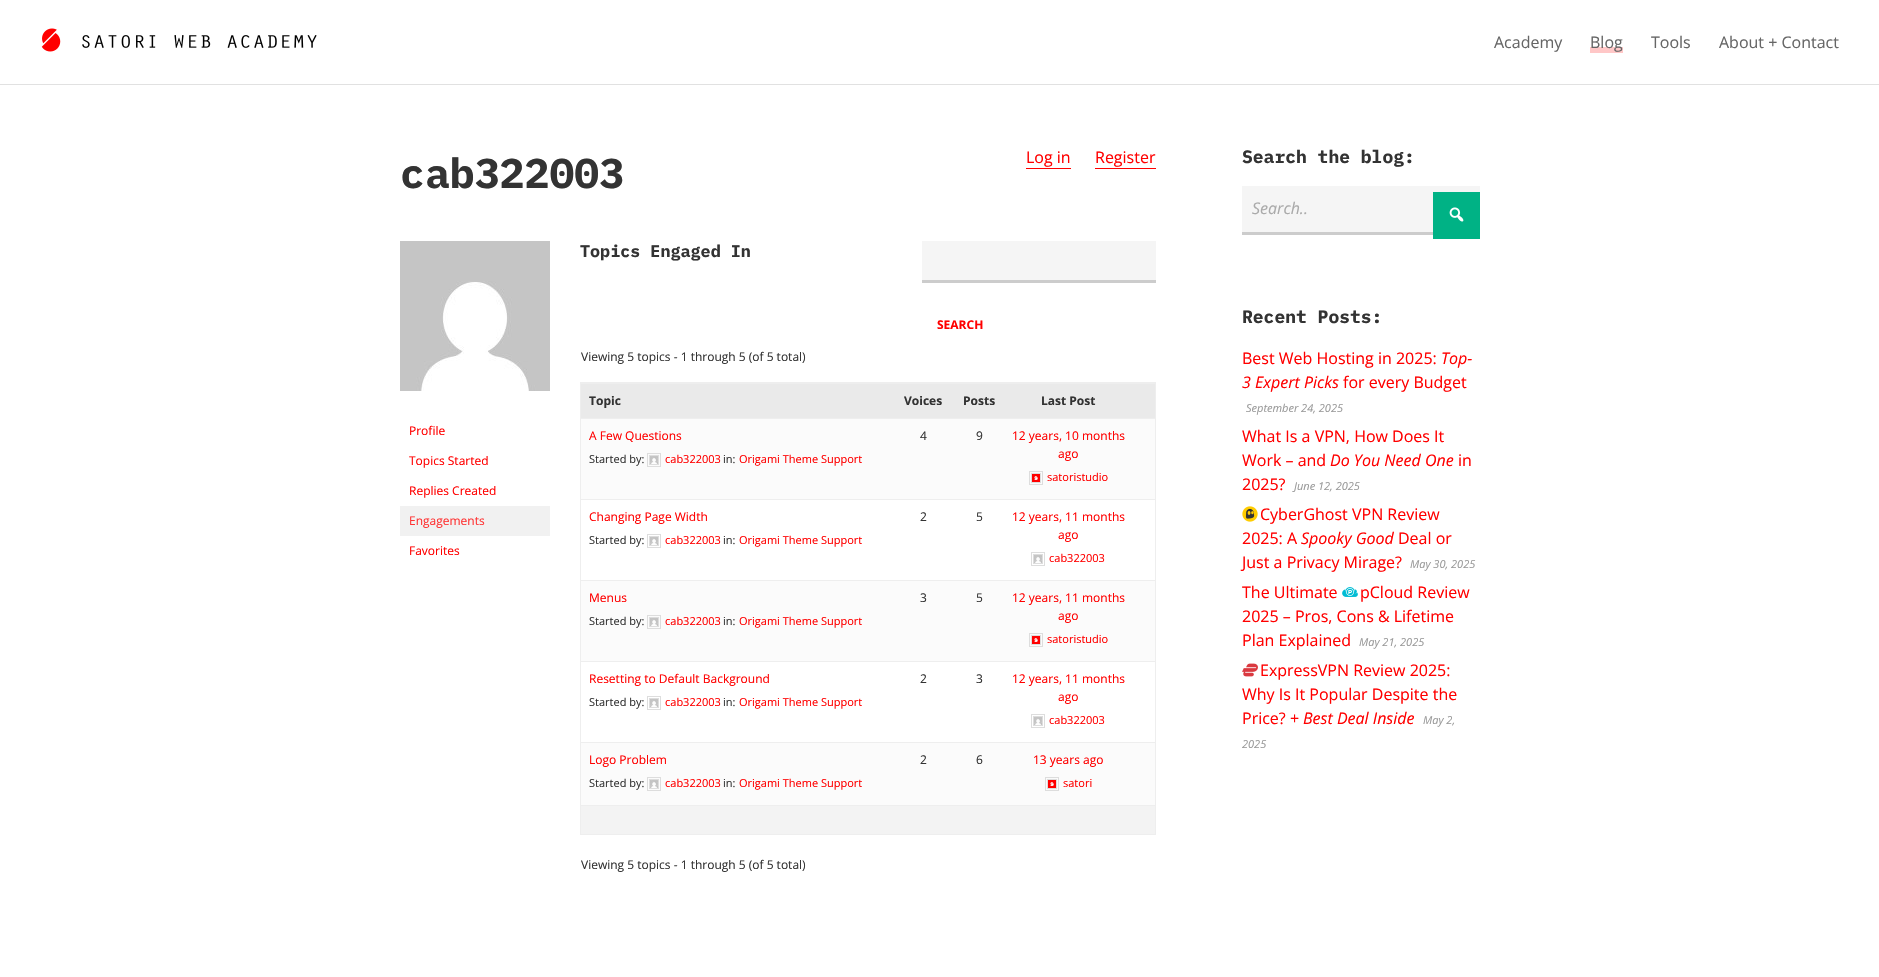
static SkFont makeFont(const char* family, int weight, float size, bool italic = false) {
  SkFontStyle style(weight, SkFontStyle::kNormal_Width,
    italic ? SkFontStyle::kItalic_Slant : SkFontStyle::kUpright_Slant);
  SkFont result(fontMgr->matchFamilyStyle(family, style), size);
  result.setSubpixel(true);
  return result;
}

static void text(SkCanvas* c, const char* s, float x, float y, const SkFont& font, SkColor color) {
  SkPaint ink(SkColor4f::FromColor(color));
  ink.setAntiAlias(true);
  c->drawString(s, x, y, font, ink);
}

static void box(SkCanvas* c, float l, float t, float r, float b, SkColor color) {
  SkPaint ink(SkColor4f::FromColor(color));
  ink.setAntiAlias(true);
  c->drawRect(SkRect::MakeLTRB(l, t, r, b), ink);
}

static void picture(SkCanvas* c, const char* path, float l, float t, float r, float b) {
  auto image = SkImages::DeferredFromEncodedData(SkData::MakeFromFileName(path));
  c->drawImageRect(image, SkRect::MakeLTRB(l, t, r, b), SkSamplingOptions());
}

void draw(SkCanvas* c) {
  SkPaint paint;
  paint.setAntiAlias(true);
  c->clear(0xffffffff);
  box(c, 0, 84, 1879, 85, 0xffe1e1e1);
  picture(c, "img_01.png", 41, 28, 61, 52);
  picture(c, "img_02.png", 82, 35, 317, 48);
  SkFont face1 = makeFont("Open Sans", 400, 16);
  text(c, "Academy", 1494, 48, face1, 0xff666666);
  box(c, 1590, 47, 1623, 53, 0xffffc7c7);
  text(c, "Blog", 1590, 48, face1, 0xff666666);
  text(c, "Tools", 1651, 48, face1, 0xff666666);
  text(c, "About + Contact", 1719, 48, face1, 0xff666666);
  SkFont face2 = makeFont("IBM Plex Mono", 700, 41.5f);
  text(c, "cab322003", 400, 188, face2, 0xff333333);
  text(c, "Log in", 1026, 163, face1, 0xffff0000);
  box(c, 1026, 168, 1071, 169, 0xffff0000);
  text(c, "Register", 1095, 163, face1, 0xffff0000);
  box(c, 1095, 168, 1156, 169, 0xffff0000);
  picture(c, "img_03.png", 400, 241, 550, 391);
  SkFont face3 = makeFont("Open Sans", 400, 12);
  text(c, "Profile", 409, 435, face3, 0xffff0000);
  text(c, "Topics Started", 409, 465, face3, 0xffff0000);
  text(c, "Replies Created", 409, 495, face3, 0xffff0000);
  box(c, 400, 506, 550, 536, 0xfff1f1f1);
  text(c, "Engagements", 409, 525, face3, 0xffff3333);
  text(c, "Favorites", 409, 555, face3, 0xffff0000);
  SkFont face4 = makeFont("IBM Plex Mono", 700, 16.75f);
  text(c, "Topics Engaged In", 580, 257, face4, 0xff333333);
  box(c, 922, 241, 1156, 280, 0xfff5f5f5);
  box(c, 922, 280, 1156, 283, 0xffcccccc);
  SkFont face5 = makeFont("Open Sans", 700, 12);
  text(c, "SEARCH", 937, 329, face5, 0xffff0000);
  text(c, "Viewing 5 topics - 1 through 5 (of 5 total)", 581, 361, face3, 0xff333333);
  paint.setStyle(SkPaint::kStroke_Style);
  paint.setStrokeWidth(1);
  paint.setColor(0xffeeeeee);
  c->drawRect(SkRect::MakeLTRB(580.5f, 382.5f, 1155.5f, 834.5f), paint);
  box(c, 581, 384, 1155, 418, 0xffeaeaea);
  box(c, 581, 383, 1155, 384, 0xffeeeeee);
  text(c, "Topic", 589, 405, face5, 0xff333333);
  text(c, "Voices", 904, 405, face5, 0xff333333);
  text(c, "Posts", 963, 405, face5, 0xff333333);
  text(c, "Last Post", 1041, 405, face5, 0xff333333);
  box(c, 581, 419, 1155, 499, 0xfffbfbfb);
  box(c, 581, 418, 1155, 419, 0xffeeeeee);
  text(c, "A Few Questions", 589, 440, face3, 0xffff0000);
  SkFont face6 = makeFont("Open Sans", 400, 11);
  text(c, "Started by:", 589, 463, face6, 0xff333333);
  paint.setColor(0xffdddddd);
  c->drawRect(SkRect::MakeLTRB(647.5f, 453.5f, 660.5f, 466.5f), paint);
  c->drawRect(SkRect::MakeLTRB(649.5f, 455.5f, 658.5f, 464.5f), paint);
  picture(c, "img_04.png", 650, 456, 658, 464);
  text(c, "cab322003", 665, 463, face6, 0xffff0000);
  text(c, "in:", 723, 463, face6, 0xff333333);
  text(c, "Origami Theme Support", 739, 463, face6, 0xffff0000);
  text(c, "4", 920, 440, face3, 0xff333333);
  text(c, "9", 976, 440, face3, 0xff333333);
  text(c, "12 years, 10 months", 1012, 440, face3, 0xffff0000);
  text(c, "ago", 1058, 458, face3, 0xffff0000);
  c->drawRect(SkRect::MakeLTRB(1029.5f, 471.5f, 1042.5f, 484.5f), paint);
  c->drawRect(SkRect::MakeLTRB(1031.5f, 473.5f, 1040.5f, 482.5f), paint);
  picture(c, "img_05.png", 1032, 474, 1040, 482);
  text(c, "satoristudio", 1047, 481, face6, 0xffff0000);
  box(c, 581, 499, 1155, 500, 0xffeeeeee);
  text(c, "Changing Page Width", 589, 521, face3, 0xffff0000);
  text(c, "Started by:", 589, 544, face6, 0xff333333);
  c->drawRect(SkRect::MakeLTRB(647.5f, 534.5f, 660.5f, 547.5f), paint);
  c->drawRect(SkRect::MakeLTRB(649.5f, 536.5f, 658.5f, 545.5f), paint);
  picture(c, "img_04.png", 650, 537, 658, 545);
  text(c, "cab322003", 665, 544, face6, 0xffff0000);
  text(c, "in:", 723, 544, face6, 0xff333333);
  text(c, "Origami Theme Support", 739, 544, face6, 0xffff0000);
  text(c, "2", 920, 521, face3, 0xff333333);
  text(c, "5", 976, 521, face3, 0xff333333);
  text(c, "12 years, 11 months", 1012, 521, face3, 0xffff0000);
  text(c, "ago", 1058, 539, face3, 0xffff0000);
  c->drawRect(SkRect::MakeLTRB(1031.5f, 552.5f, 1044.5f, 565.5f), paint);
  c->drawRect(SkRect::MakeLTRB(1033.5f, 554.5f, 1042.5f, 563.5f), paint);
  picture(c, "img_06.png", 1034, 555, 1042, 563);
  text(c, "cab322003", 1049, 562, face6, 0xffff0000);
  box(c, 581, 581, 1155, 661, 0xfffbfbfb);
  box(c, 581, 580, 1155, 581, 0xffeeeeee);
  text(c, "Menus", 589, 602, face3, 0xffff0000);
  text(c, "Started by:", 589, 625, face6, 0xff333333);
  c->drawRect(SkRect::MakeLTRB(647.5f, 615.5f, 660.5f, 628.5f), paint);
  c->drawRect(SkRect::MakeLTRB(649.5f, 617.5f, 658.5f, 626.5f), paint);
  picture(c, "img_04.png", 650, 618, 658, 626);
  text(c, "cab322003", 665, 625, face6, 0xffff0000);
  text(c, "in:", 723, 625, face6, 0xff333333);
  text(c, "Origami Theme Support", 739, 625, face6, 0xffff0000);
  text(c, "3", 920, 602, face3, 0xff333333);
  text(c, "5", 976, 602, face3, 0xff333333);
  text(c, "12 years, 11 months", 1012, 602, face3, 0xffff0000);
  text(c, "ago", 1058, 620, face3, 0xffff0000);
  c->drawRect(SkRect::MakeLTRB(1029.5f, 633.5f, 1042.5f, 646.5f), paint);
  c->drawRect(SkRect::MakeLTRB(1031.5f, 635.5f, 1040.5f, 644.5f), paint);
  picture(c, "img_05.png", 1032, 636, 1040, 644);
  text(c, "satoristudio", 1047, 643, face6, 0xffff0000);
  box(c, 581, 661, 1155, 662, 0xffeeeeee);
  text(c, "Resetting to Default Background", 589, 683, face3, 0xffff0000);
  text(c, "Started by:", 589, 706, face6, 0xff333333);
  c->drawRect(SkRect::MakeLTRB(647.5f, 696.5f, 660.5f, 709.5f), paint);
  c->drawRect(SkRect::MakeLTRB(649.5f, 698.5f, 658.5f, 707.5f), paint);
  picture(c, "img_04.png", 650, 699, 658, 707);
  text(c, "cab322003", 665, 706, face6, 0xffff0000);
  text(c, "in:", 723, 706, face6, 0xff333333);
  text(c, "Origami Theme Support", 739, 706, face6, 0xffff0000);
  text(c, "2", 920, 683, face3, 0xff333333);
  text(c, "3", 976, 683, face3, 0xff333333);
  text(c, "12 years, 11 months", 1012, 683, face3, 0xffff0000);
  text(c, "ago", 1058, 701, face3, 0xffff0000);
  c->drawRect(SkRect::MakeLTRB(1031.5f, 714.5f, 1044.5f, 727.5f), paint);
  c->drawRect(SkRect::MakeLTRB(1033.5f, 716.5f, 1042.5f, 725.5f), paint);
  picture(c, "img_06.png", 1034, 717, 1042, 725);
  text(c, "cab322003", 1049, 724, face6, 0xffff0000);
  box(c, 581, 743, 1155, 805, 0xfffbfbfb);
  box(c, 581, 742, 1155, 743, 0xffeeeeee);
  text(c, "Logo Problem", 589, 764, face3, 0xffff0000);
  text(c, "Started by:", 589, 787, face6, 0xff333333);
  c->drawRect(SkRect::MakeLTRB(647.5f, 777.5f, 660.5f, 790.5f), paint);
  c->drawRect(SkRect::MakeLTRB(649.5f, 779.5f, 658.5f, 788.5f), paint);
  picture(c, "img_07.png", 650, 780, 658, 788);
  text(c, "cab322003", 665, 787, face6, 0xffff0000);
  text(c, "in:", 723, 787, face6, 0xff333333);
  text(c, "Origami Theme Support", 739, 787, face6, 0xffff0000);
  text(c, "2", 920, 764, face3, 0xff333333);
  text(c, "6", 976, 764, face3, 0xff333333);
  text(c, "13 years ago", 1033, 764, face3, 0xffff0000);
  c->drawRect(SkRect::MakeLTRB(1045.5f, 777.5f, 1058.5f, 790.5f), paint);
  c->drawRect(SkRect::MakeLTRB(1047.5f, 779.5f, 1056.5f, 788.5f), paint);
  picture(c, "img_08.png", 1048, 780, 1056, 788);
  text(c, "satori", 1063, 787, face6, 0xffff0000);
  box(c, 581, 806, 1155, 834, 0xfff3f3f3);
  box(c, 581, 805, 1155, 806, 0xffeeeeee);
  text(c, "Viewing 5 topics - 1 through 5 (of 5 total)", 581, 869, face3, 0xff333333);
  SkFont face7 = makeFont("IBM Plex Mono", 700, 18);
  text(c, "Search the blog:", 1242, 163, face7, 0xff333333);
  box(c, 1242, 186, 1480, 232, 0xfff5f5f5);
  box(c, 1242, 232, 1433, 235, 0xffcccccc);
  SkFont face8 = makeFont("Open Sans", 400, 16, true);
  text(c, "Search..", 1252, 214, face8, 0xffaaaaaa);
  box(c, 1433, 192, 1480, 239, 0xff00b285);
  picture(c, "img_09.png", 1449, 207, 1464, 222);
  text(c, "Recent Posts:", 1242, 323, face7, 0xff333333);
  text(c, "Best Web Hosting in 2025:", 1242, 364, face1, 0xffff0000);
  text(c, "Top-", 1441, 364, face8, 0xffff0000);
  text(c, "3 Expert Picks", 1242, 388, face8, 0xffff0000);
  text(c, "for every Budget", 1343, 388, face1, 0xffff0000);
  SkFont face9 = makeFont("Open Sans", 400, 11, true);
  text(c, "September 24, 2025", 1246, 412, face9, 0xff999999);
  text(c, "What Is a VPN, How Does It", 1242, 442, face1, 0xffff0000);
  text(c, "Work – and", 1242, 466, face1, 0xffff0000);
  text(c, "Do You Need One", 1330, 466, face8, 0xffff0000);
  text(c, "in", 1458, 466, face1, 0xffff0000);
  text(c, "2025?", 1242, 490, face1, 0xffff0000);
  text(c, "June 12, 2025", 1294, 490, face9, 0xff999999);
  picture(c, "img_10.png", 1242, 506, 1258, 522);
  text(c, "CyberGhost VPN Review", 1260, 520, face1, 0xffff0000);
  text(c, "2025: A", 1242, 544, face1, 0xffff0000);
  text(c, "Spooky Good", 1301, 544, face8, 0xffff0000);
  text(c, "Deal or", 1398, 544, face1, 0xffff0000);
  text(c, "Just a Privacy Mirage?", 1242, 568, face1, 0xffff0000);
  text(c, "May 30, 2025", 1410, 568, face9, 0xff999999);
  text(c, "The Ultimate", 1242, 598, face1, 0xffff0000);
  picture(c, "img_11.png", 1342, 587, 1358, 597);
  text(c, "pCloud Review", 1360, 598, face1, 0xffff0000);
  text(c, "2025 – Pros, Cons & Lifetime", 1242, 622, face1, 0xffff0000);
  text(c, "Plan Explained", 1242, 646, face1, 0xffff0000);
  text(c, "May 21, 2025", 1359, 646, face9, 0xff999999);
  picture(c, "img_12.png", 1242, 663, 1258, 677);
  text(c, "ExpressVPN Review 2025:", 1260, 676, face1, 0xffff0000);
  text(c, "Why Is It Popular Despite the", 1242, 700, face1, 0xffff0000);
  text(c, "Price? +", 1242, 724, face1, 0xffff0000);
  text(c, "Best Deal Inside", 1303, 724, face8, 0xffff0000);
  text(c, "May 2,", 1423, 724, face9, 0xff999999);
  text(c, "2025", 1242, 748, face9, 0xff999999);
}
